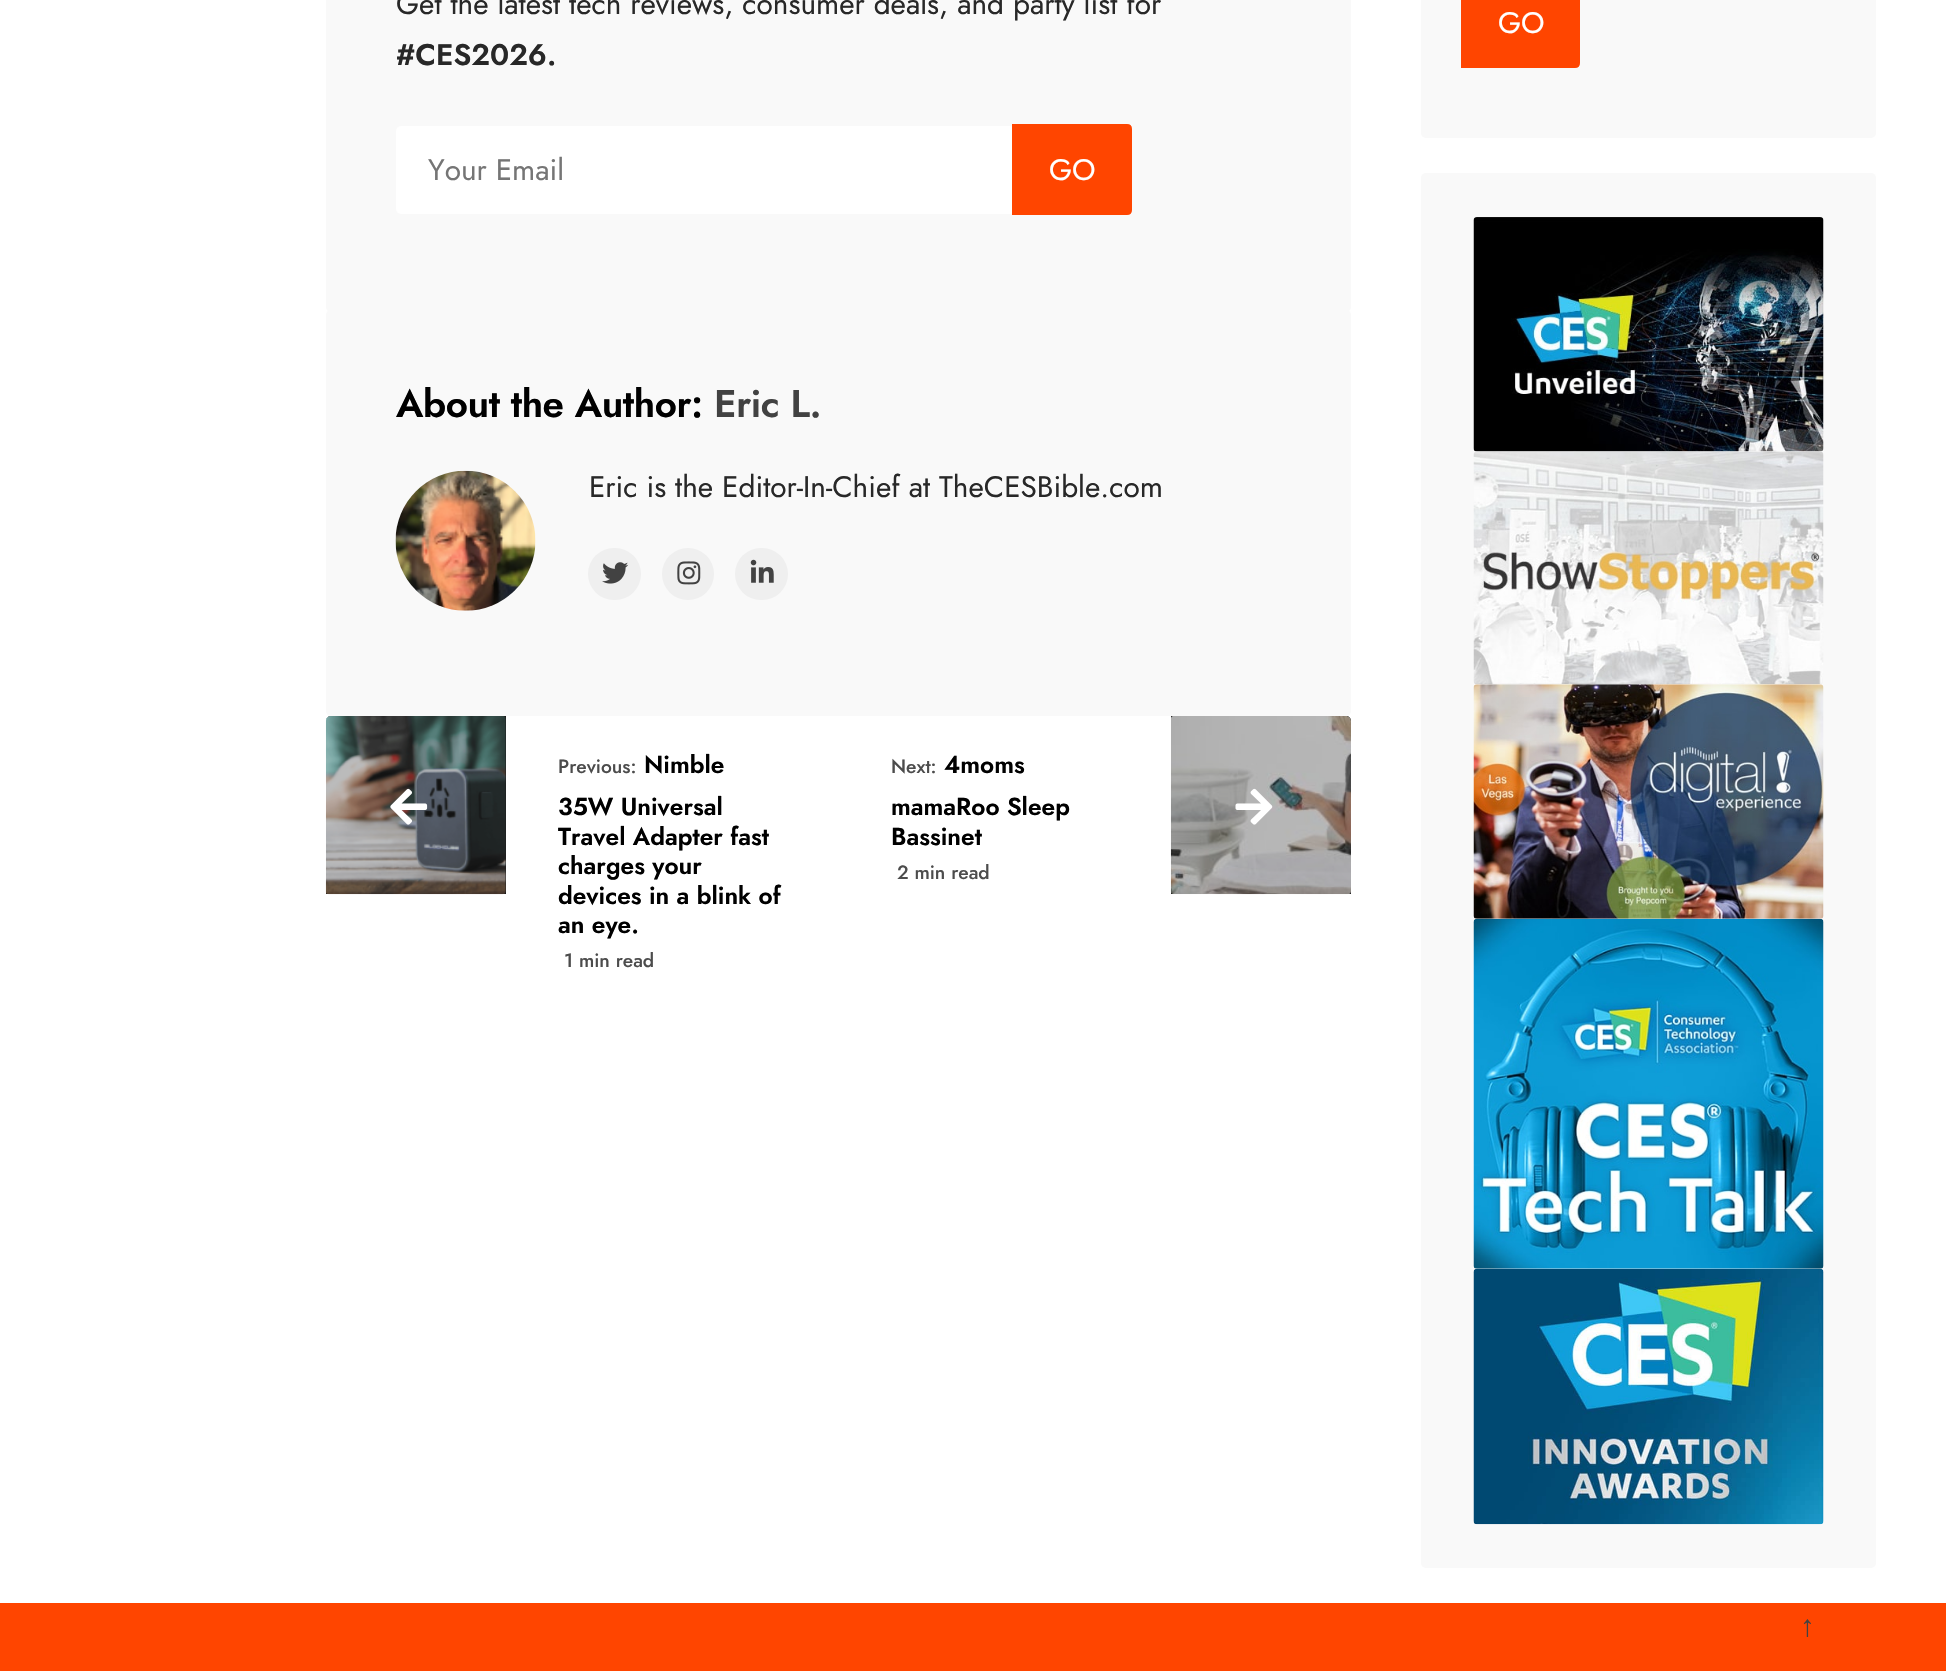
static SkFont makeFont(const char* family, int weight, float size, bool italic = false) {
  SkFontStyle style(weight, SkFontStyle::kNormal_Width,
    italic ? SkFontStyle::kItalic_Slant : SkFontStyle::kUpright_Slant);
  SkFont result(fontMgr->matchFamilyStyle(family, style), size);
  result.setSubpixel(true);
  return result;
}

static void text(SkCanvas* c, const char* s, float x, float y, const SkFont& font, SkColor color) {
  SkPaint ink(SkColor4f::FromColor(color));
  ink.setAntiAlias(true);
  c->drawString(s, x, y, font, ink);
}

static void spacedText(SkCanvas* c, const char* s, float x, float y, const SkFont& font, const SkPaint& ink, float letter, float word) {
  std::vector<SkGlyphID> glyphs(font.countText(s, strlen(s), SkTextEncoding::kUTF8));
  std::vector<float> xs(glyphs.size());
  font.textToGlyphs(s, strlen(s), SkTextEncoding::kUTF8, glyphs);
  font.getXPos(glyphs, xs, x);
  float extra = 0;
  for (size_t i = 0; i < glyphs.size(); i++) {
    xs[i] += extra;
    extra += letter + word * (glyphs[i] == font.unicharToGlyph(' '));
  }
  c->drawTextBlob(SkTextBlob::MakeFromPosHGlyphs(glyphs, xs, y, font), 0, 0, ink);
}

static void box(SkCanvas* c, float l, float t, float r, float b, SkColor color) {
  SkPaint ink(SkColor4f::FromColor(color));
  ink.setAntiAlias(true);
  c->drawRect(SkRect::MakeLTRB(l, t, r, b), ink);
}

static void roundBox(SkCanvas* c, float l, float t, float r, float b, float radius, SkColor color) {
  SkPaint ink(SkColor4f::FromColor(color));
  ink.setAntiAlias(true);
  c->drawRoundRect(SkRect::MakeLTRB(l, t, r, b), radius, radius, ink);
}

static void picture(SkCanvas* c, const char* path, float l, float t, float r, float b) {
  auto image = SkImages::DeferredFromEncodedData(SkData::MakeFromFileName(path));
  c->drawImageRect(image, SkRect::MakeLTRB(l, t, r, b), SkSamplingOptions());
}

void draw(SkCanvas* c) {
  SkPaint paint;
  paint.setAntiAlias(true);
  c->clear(0xffffffff);
  roundBox(c, 326, -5, 1351, 312, 5, 0xfff9f9f9);
  SkFont face1 = makeFont("Jost", 400, 29.75f);
  text(c, "Get the latest tech reviews, consumer deals, and party list for", 396, 14, face1, 0xff282828);
  SkFont face2 = makeFont("Jost", 600, 29.75f);
  text(c, "#CES2026.", 396, 65, face2, 0xff282828);
  roundBox(c, 396, 126, 1015, 214, 5, 0xffffffff);
  text(c, "Your Email", 428, 180, face1, 0xff757575);
  paint.setColor(0xffff4500);
  c->drawPath(SkPathBuilder().moveTo(1014.5f, 126.5f).lineTo(1127, 126.5f).cubicTo(1128.5f, 126.5f, 1129.5f, 127.5f, 1129.5f, 129).lineTo(1129.5f, 210).cubicTo(1129.5f, 211.5f, 1128.5f, 212.5f, 1127, 212.5f).lineTo(1014.5f, 212.5f).close().detach(), paint);
  paint.setStyle(SkPaint::kStroke_Style);
  paint.setStrokeWidth(5);
  c->drawPath(SkPathBuilder().moveTo(1014.5f, 126.5f).lineTo(1127, 126.5f).cubicTo(1128.5f, 126.5f, 1129.5f, 127.5f, 1129.5f, 129).lineTo(1129.5f, 210).cubicTo(1129.5f, 211.5f, 1128.5f, 212.5f, 1127, 212.5f).lineTo(1014.5f, 212.5f).close().detach(), paint);
  text(c, "GO", 1049, 180, face1, 0xffffffff);
  roundBox(c, 326, 310, 1351, 716, 5, 0xfff9f9f9);
  SkFont face3 = makeFont("Jost", 600, 38.5f);
  paint.setStyle(SkPaint::kFill_Style);
  paint.setColor(0xff000000);
  spacedText(c, "About the Author:", 396, 417, face3, paint, -0.4f, 0);
  paint.setColor(0xff424242);
  spacedText(c, "Eric L.", 714, 417, face3, paint, -0.4f, 0);
  picture(c, "img_01.png", 395, 470, 536, 611);
  text(c, "Eric is the Editor-In-Chief at TheCESBible.com", 589, 497, face1, 0xff282828);
  roundBox(c, 588, 548, 641, 600, 26, 0xffefefef);
  picture(c, "img_02.png", 602, 562, 629, 584);
  paint.setColor(0xffefefef);
  c->drawCircle(688, 574, 26, paint);
  picture(c, "img_03.png", 677, 561, 701, 585);
  roundBox(c, 735, 548, 788, 600, 26, 0xffefefef);
  picture(c, "img_04.png", 750, 559, 774, 583);
  paint.setColor(0xff191919);
  c->drawPath(SkPathBuilder().moveTo(331, 716).lineTo(506, 716).lineTo(506, 894).lineTo(326, 894).lineTo(326, 721).cubicTo(326, 718, 328, 716, 331, 716).close().detach(), paint);
  picture(c, "img_05.png", 325, 716, 506, 895);
  picture(c, "img_06.png", 390, 788, 428, 825);
  SkFont face4 = makeFont("Jost", 500, 19.25f);
  text(c, "Previous:", 558, 773, face4, 0xff4c4c4c);
  SkFont face5 = makeFont("Jost", 600, 24.5f);
  text(c, "Nimble", 644, 773, face5, 0xff000000);
  text(c, "35W Universal", 558, 815, face5, 0xff000000);
  text(c, "Travel Adapter fast", 558, 845, face5, 0xff000000);
  text(c, "charges your", 558, 874, face5, 0xff000000);
  text(c, "devices in a blink of", 558, 904, face5, 0xff000000);
  text(c, "an eye.", 558, 933, face5, 0xff000000);
  text(c, "1 min read", 564, 967, face4, 0xff4c4c4c);
  text(c, "Next:", 891, 773, face4, 0xff4c4c4c);
  text(c, "4moms", 944, 773, face5, 0xff000000);
  text(c, "mamaRoo Sleep", 891, 815, face5, 0xff000000);
  text(c, "Bassinet", 891, 845, face5, 0xff000000);
  text(c, "2 min read", 897, 879, face4, 0xff4c4c4c);
  c->drawPath(SkPathBuilder().moveTo(1171, 716).lineTo(1346, 716).cubicTo(1349, 716, 1351, 718, 1351, 721).lineTo(1351, 894).lineTo(1171, 894).close().detach(), paint);
  picture(c, "img_07.png", 1170, 716, 1351, 895);
  picture(c, "img_08.png", 1235, 788, 1273, 825);
  roundBox(c, 1421, -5, 1876, 138, 5, 0xfff9f9f9);
  paint.setColor(0xffff4500);
  c->drawPath(SkPathBuilder().moveTo(1463.5f, -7.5f).lineTo(1575, -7.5f).cubicTo(1576.5f, -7.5f, 1577.5f, -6.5f, 1577.5f, -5).lineTo(1577.5f, 63).cubicTo(1577.5f, 64.5f, 1576.5f, 65.5f, 1575, 65.5f).lineTo(1463.5f, 65.5f).close().detach(), paint);
  paint.setStyle(SkPaint::kStroke_Style);
  c->drawPath(SkPathBuilder().moveTo(1463.5f, -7.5f).lineTo(1575, -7.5f).cubicTo(1576.5f, -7.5f, 1577.5f, -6.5f, 1577.5f, -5).lineTo(1577.5f, 63).cubicTo(1577.5f, 64.5f, 1576.5f, 65.5f, 1575, 65.5f).lineTo(1463.5f, 65.5f).close().detach(), paint);
  text(c, "GO", 1498, 33, face1, 0xffffffff);
  roundBox(c, 1421, 173, 1876, 1568, 5, 0xfff9f9f9);
  picture(c, "img_09.png", 1473, 217, 1824, 452);
  picture(c, "img_10.png", 1473, 451, 1824, 684);
  picture(c, "img_11.png", 1473, 684, 1824, 919);
  picture(c, "img_12.png", 1473, 918, 1824, 1269);
  picture(c, "img_13.png", 1473, 1268, 1824, 1525);
  box(c, 0, 1603, 1946, 1671, 0xffff4500);
  SkFont face6 = makeFont("Liberation Serif", 400, 29.75f);
  text(c, "↑", 1800, 1636, face6, 0xff424242);
}
